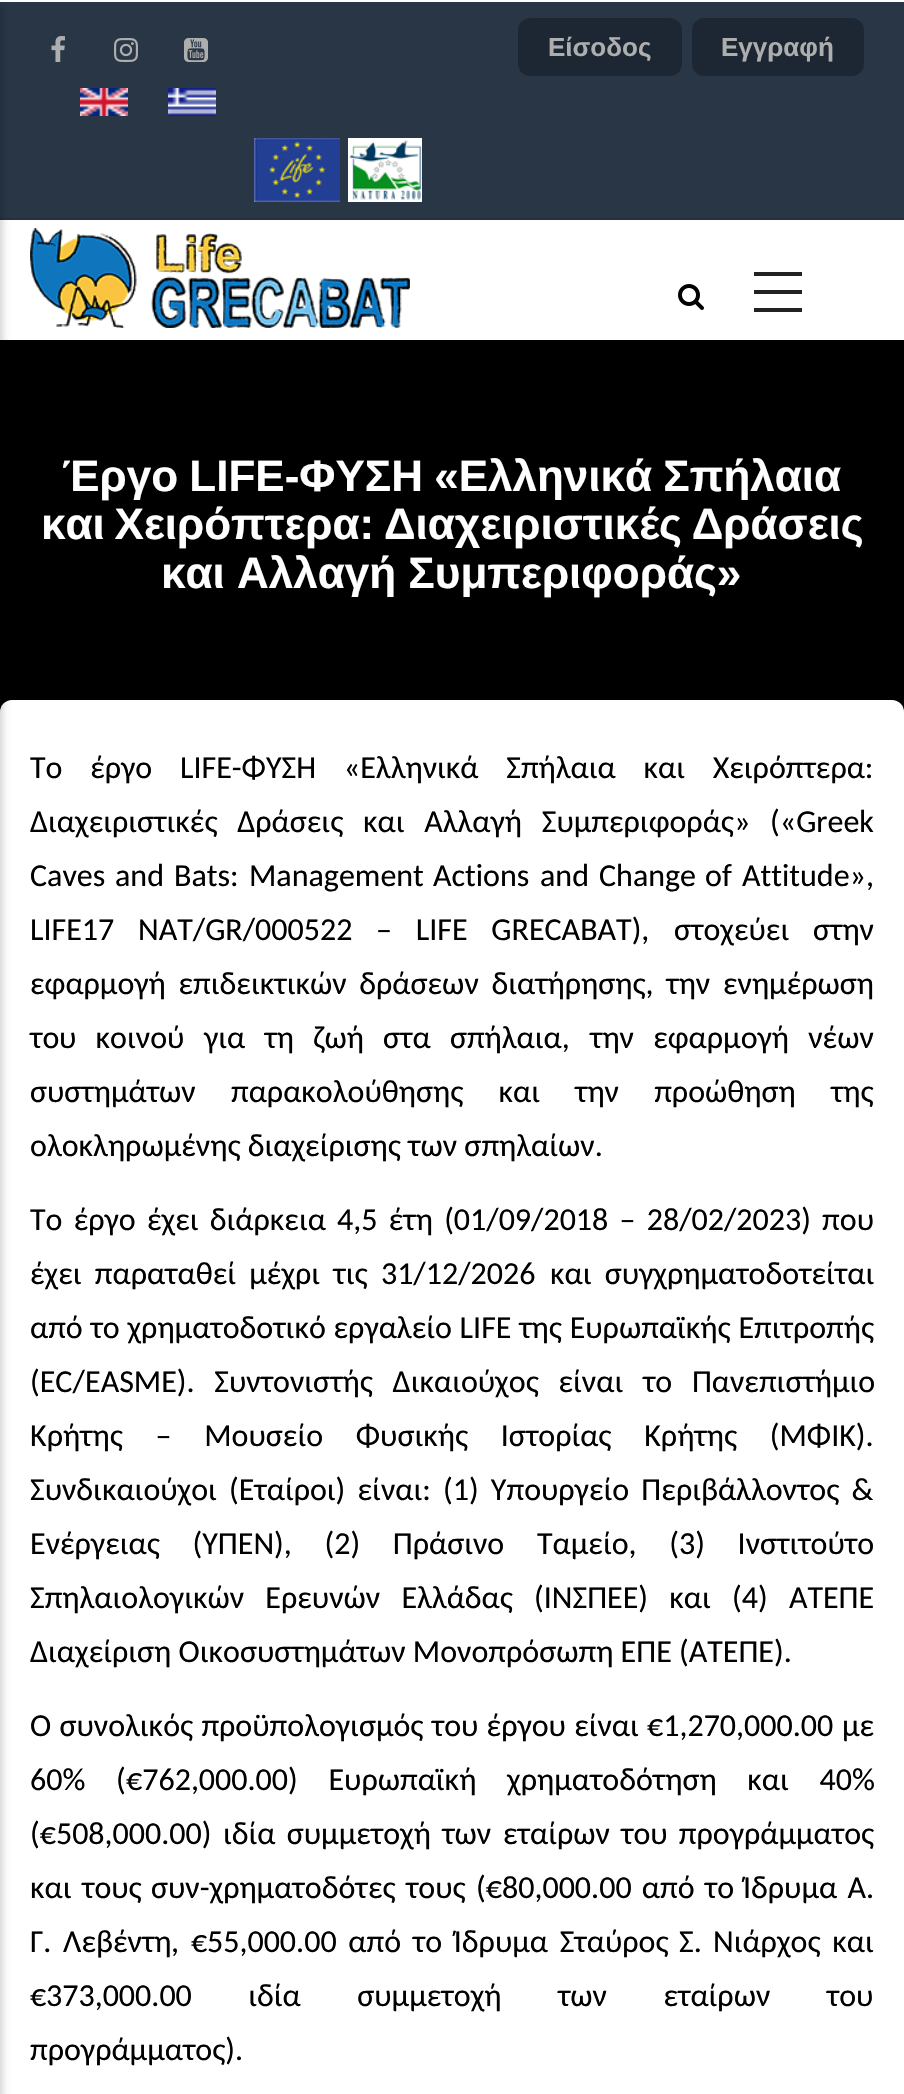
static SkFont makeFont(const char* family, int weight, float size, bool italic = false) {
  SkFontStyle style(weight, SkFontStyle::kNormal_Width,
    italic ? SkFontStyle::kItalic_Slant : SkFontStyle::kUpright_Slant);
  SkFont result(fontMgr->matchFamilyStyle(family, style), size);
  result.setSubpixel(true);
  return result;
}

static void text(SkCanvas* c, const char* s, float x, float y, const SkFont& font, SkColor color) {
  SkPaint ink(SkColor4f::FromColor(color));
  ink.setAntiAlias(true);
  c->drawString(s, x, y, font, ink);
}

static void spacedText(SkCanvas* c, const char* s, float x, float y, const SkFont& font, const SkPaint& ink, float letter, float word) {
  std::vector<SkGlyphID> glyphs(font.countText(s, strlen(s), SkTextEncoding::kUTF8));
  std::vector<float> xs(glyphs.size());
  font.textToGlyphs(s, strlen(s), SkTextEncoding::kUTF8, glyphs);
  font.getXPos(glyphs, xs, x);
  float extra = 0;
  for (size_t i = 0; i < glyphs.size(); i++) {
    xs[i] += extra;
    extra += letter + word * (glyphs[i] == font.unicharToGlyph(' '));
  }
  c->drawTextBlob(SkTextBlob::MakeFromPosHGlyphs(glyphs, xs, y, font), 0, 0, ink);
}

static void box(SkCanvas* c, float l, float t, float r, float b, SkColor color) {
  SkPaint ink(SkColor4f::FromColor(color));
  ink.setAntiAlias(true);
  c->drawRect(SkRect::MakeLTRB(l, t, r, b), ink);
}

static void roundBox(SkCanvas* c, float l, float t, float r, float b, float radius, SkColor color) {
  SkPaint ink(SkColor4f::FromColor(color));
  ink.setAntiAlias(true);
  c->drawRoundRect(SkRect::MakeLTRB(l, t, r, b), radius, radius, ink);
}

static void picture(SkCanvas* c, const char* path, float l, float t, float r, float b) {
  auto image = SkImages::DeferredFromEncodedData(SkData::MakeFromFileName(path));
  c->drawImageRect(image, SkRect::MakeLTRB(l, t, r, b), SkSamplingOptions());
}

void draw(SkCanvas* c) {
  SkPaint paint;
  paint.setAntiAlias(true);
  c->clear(0xffffffff);
  box(c, 0, 2, 904, 218, 0xff283646);
  box(c, 0, 218, 904, 220, 0xff24313f);
  box(c, 0, 340, 904, 712, 0xff000000);
  roundBox(c, 0, 700, 904, 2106, 12, 0xffffffff);
  paint.setColor(0x33000000);
  paint.setMaskFilter(SkMaskFilter::MakeBlur(kNormal_SkBlurStyle, 4));
  c->drawRect(SkRect::MakeLTRB(-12, 6, 2, 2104), paint);
  paint.setMaskFilter(nullptr);
  picture(c, "img_01.png", 678, 284, 704, 310);
  box(c, 754, 272, 802, 276, 0xff222222);
  box(c, 754, 290, 802, 294, 0xff222222);
  box(c, 754, 308, 802, 312, 0xff222222);
  picture(c, "img_02.png", 30, 228, 410, 328);
  picture(c, "img_03.png", 51, 36, 65, 62);
  picture(c, "img_04.png", 114, 38, 138, 62);
  picture(c, "img_05.png", 184, 38, 208, 62);
  picture(c, "img_06.png", 80, 88, 128, 116);
  picture(c, "img_07.png", 168, 88, 216, 116);
  picture(c, "img_08.png", 254, 138, 340, 202);
  picture(c, "img_09.png", 348, 138, 422, 202);
  roundBox(c, 518, 18, 682, 76, 12, 0xff1c2733);
  SkFont face1 = makeFont("Liberation Sans", 700, 26);
  text(c, "Είσοδος", 548, 56, face1, 0xffaeaeae);
  roundBox(c, 692, 18, 864, 76, 12, 0xff1c2733);
  text(c, "Εγγραφή", 721, 56, face1, 0xffaeaeae);
  SkFont face2 = makeFont("Liberation Sans", 700, 44);
  paint.setColor(0xffffffff);
  spacedText(c, "Έργο LIFE-ΦΥΣΗ «Ελληνικά Σπήλαια", 62, 491, face2, paint, 0, -1);
  spacedText(c, "και Χειρόπτερα: Διαχειριστικές Δράσεις", 41, 539, face2, paint, 0, -2.5f);
  text(c, "και Αλλαγή Συμπεριφοράς»", 161, 588, face2, 0xffffffff);
  SkFont face3 = makeFont("Carlito", 400, 32);
  paint.setColor(0xff000000);
  spacedText(c, "Το έργο LIFE-ΦΥΣΗ «Ελληνικά Σπήλαια και Χειρόπτερα:", 30, 778, face3, paint, 0, 20.5f);
  spacedText(c, "Διαχειριστικές Δράσεις και Αλλαγή Συμπεριφοράς» («Greek", 30, 832, face3, paint, 0, 12.5f);
  text(c, "Caves", 30, 886, face3, 0xff000000);
  text(c, "and", 115, 886, face3, 0xff000000);
  text(c, "Bats:", 174, 886, face3, 0xff000000);
  text(c, "Management", 249, 886, face3, 0xff000000);
  text(c, "Actions", 433, 886, face3, 0xff000000);
  text(c, "and", 540, 886, face3, 0xff000000);
  text(c, "Change", 599, 886, face3, 0xff000000);
  text(c, "of", 705, 886, face3, 0xff000000);
  text(c, "Attitude»,", 742, 886, face3, 0xff000000);
  spacedText(c, "LIFE17 NAT/GR/000522 – LIFE GRECABAT),", 30, 940, face3, paint, 0, 16.5f);
  text(c, "στοχεύει", 674, 940, face3, 0xff000000);
  text(c, "στην", 813, 940, face3, 0xff000000);
  spacedText(c, "εφαρμογή επιδεικτικών δράσεων διατήρησης, την ενημέρωση", 30, 994, face3, paint, 0, 5.5f);
  text(c, "το", 30, 1048, face3, 0xff000000);
  spacedText(c, "υ κοινού", 59, 1048, face3, paint, 0, 12);
  spacedText(c, "για τη ζωή στα σπήλαια,", 204, 1048, face3, paint, 0, 12);
  spacedText(c, "την εφαρμογή νέων", 590, 1048, face3, paint, 0, 12);
  text(c, "συστημάτων", 30, 1102, face3, 0xff000000);
  spacedText(c, "παρακολούθησης και", 231, 1102, face3, paint, 0, 28);
  spacedText(c, "την προώθηση της", 575, 1102, face3, paint, 0, 28);
  text(c, "ολοκληρωμένης διαχείρισης των σπηλαίων.", 30, 1156, face3, 0xff000000);
  spacedText(c, "Το έργο", 30, 1230, face3, paint, 0, 4);
  spacedText(c, "έχει διάρκεια 4,5 έτη (01/09/2018 – 28/02/2023) που", 147, 1230, face3, paint, 0, 4);
  spacedText(c, "έχει παραταθεί μέχρι τις 31/12/2026", 30, 1284, face3, paint, 0, 6);
  spacedText(c, "και συγχρηματοδοτείται", 550, 1284, face3, paint, 0, 6);
  spacedText(c, "από το χρηματοδοτικό εργαλείο LIFE της Ευρωπαϊκής Επιτροπής", 30, 1338, face3, paint, 0, 0.5f);
  text(c, "(EC/", 30, 1392, face3, 0xff000000);
  spacedText(c, "EASME). Συντονιστής Δικαιούχος είναι το Πανεπιστήμιο", 85, 1392, face3, paint, 0, 12.5f);
  spacedText(c, "Κρήτης – Μουσείο Φυσικής Ιστορίας Κρήτης (ΜΦΙΚ).", 30, 1446, face3, paint, 0, 25.5f);
  text(c, "Συνδικαιούχοι", 30, 1500, face3, 0xff000000);
  spacedText(c, "(Εταίροι) είναι: (1) Υπουργείο Περιβάλλοντος &", 229, 1500, face3, paint, 0, 5);
  spacedText(c, "Ενέργειας (ΥΠΕΝ), (2) Πράσινο Ταμείο, (3) Ινστιτούτο", 30, 1554, face3, paint, 0, 25.5f);
  spacedText(c, "Σπηλαιολογικών Ερευνών Ελλάδας (ΙΝΣΠΕΕ) και (4) ΑΤΕΠΕ", 30, 1608, face3, paint, 0, 14);
  text(c, "Διαχείριση Οικοσυστημάτων Μονοπρόσωπη ΕΠΕ (ΑΤΕΠΕ).", 30, 1662, face3, 0xff000000);
  spacedText(c, "Ο συνολικός προϋπολογισμός του έργου είναι", 30, 1736, face3, paint, 0, 1);
  text(c, "€1,270,000.00", 647, 1736, face3, 0xff000000);
  text(c, "με", 842, 1736, face3, 0xff000000);
  spacedText(c, "60% (", 30, 1790, face3, paint, 0, 23.5f);
  text(c, "€762,000.00", 126, 1790, face3, 0xff000000);
  spacedText(c, ") Ευρωπαϊκή χρηματοδότηση και 40%", 288, 1790, face3, paint, 0, 23.5f);
  text(c, "(€508,000.00)", 30, 1844, face3, 0xff000000);
  spacedText(c, "ιδία συμμετοχή των", 223, 1844, face3, paint, 0, 4);
  text(c, "εταίρων", 503, 1844, face3, 0xff000000);
  spacedText(c, "του προγράμματος", 621, 1844, face3, paint, 0, 4);
  text(c, "και", 30, 1898, face3, 0xff000000);
  text(c, "τους", 82, 1898, face3, 0xff000000);
  text(c, "συν-χρηματοδότ", 151, 1898, face3, 0xff000000);
  spacedText(c, "ες τους", 368, 1898, face3, paint, 0, 3);
  text(c, "(€", 476, 1898, face3, 0xff000000);
  spacedText(c, "80,000.00 από το", 502, 1898, face3, paint, 0, 3);
  spacedText(c, "Ίδρυμα Α.", 743, 1898, face3, paint, 0, 3);
  spacedText(c, "Γ. Λεβέντη", 30, 1952, face3, paint, 0, 4.5f);
  text(c, ",", 171, 1952, face3, 0xff000000);
  text(c, "€", 191, 1952, face3, 0xff000000);
  spacedText(c, "55,000.00 από το Ίδρυμα Σταύρος", 207, 1952, face3, paint, 0, 4.5f);
  text(c, "Σ.", 679, 1952, face3, 0xff000000);
  spacedText(c, "Νιάρχος και", 713, 1952, face3, paint, 0, 4.5f);
  text(c, "€", 30, 2006, face3, 0xff000000);
  spacedText(c, "373,000.00 ιδία συμμετοχή των εταίρων του", 46, 2006, face3, paint, 0, 49.25f);
  text(c, "προγράμματος).", 30, 2060, face3, 0xff000000);
}
